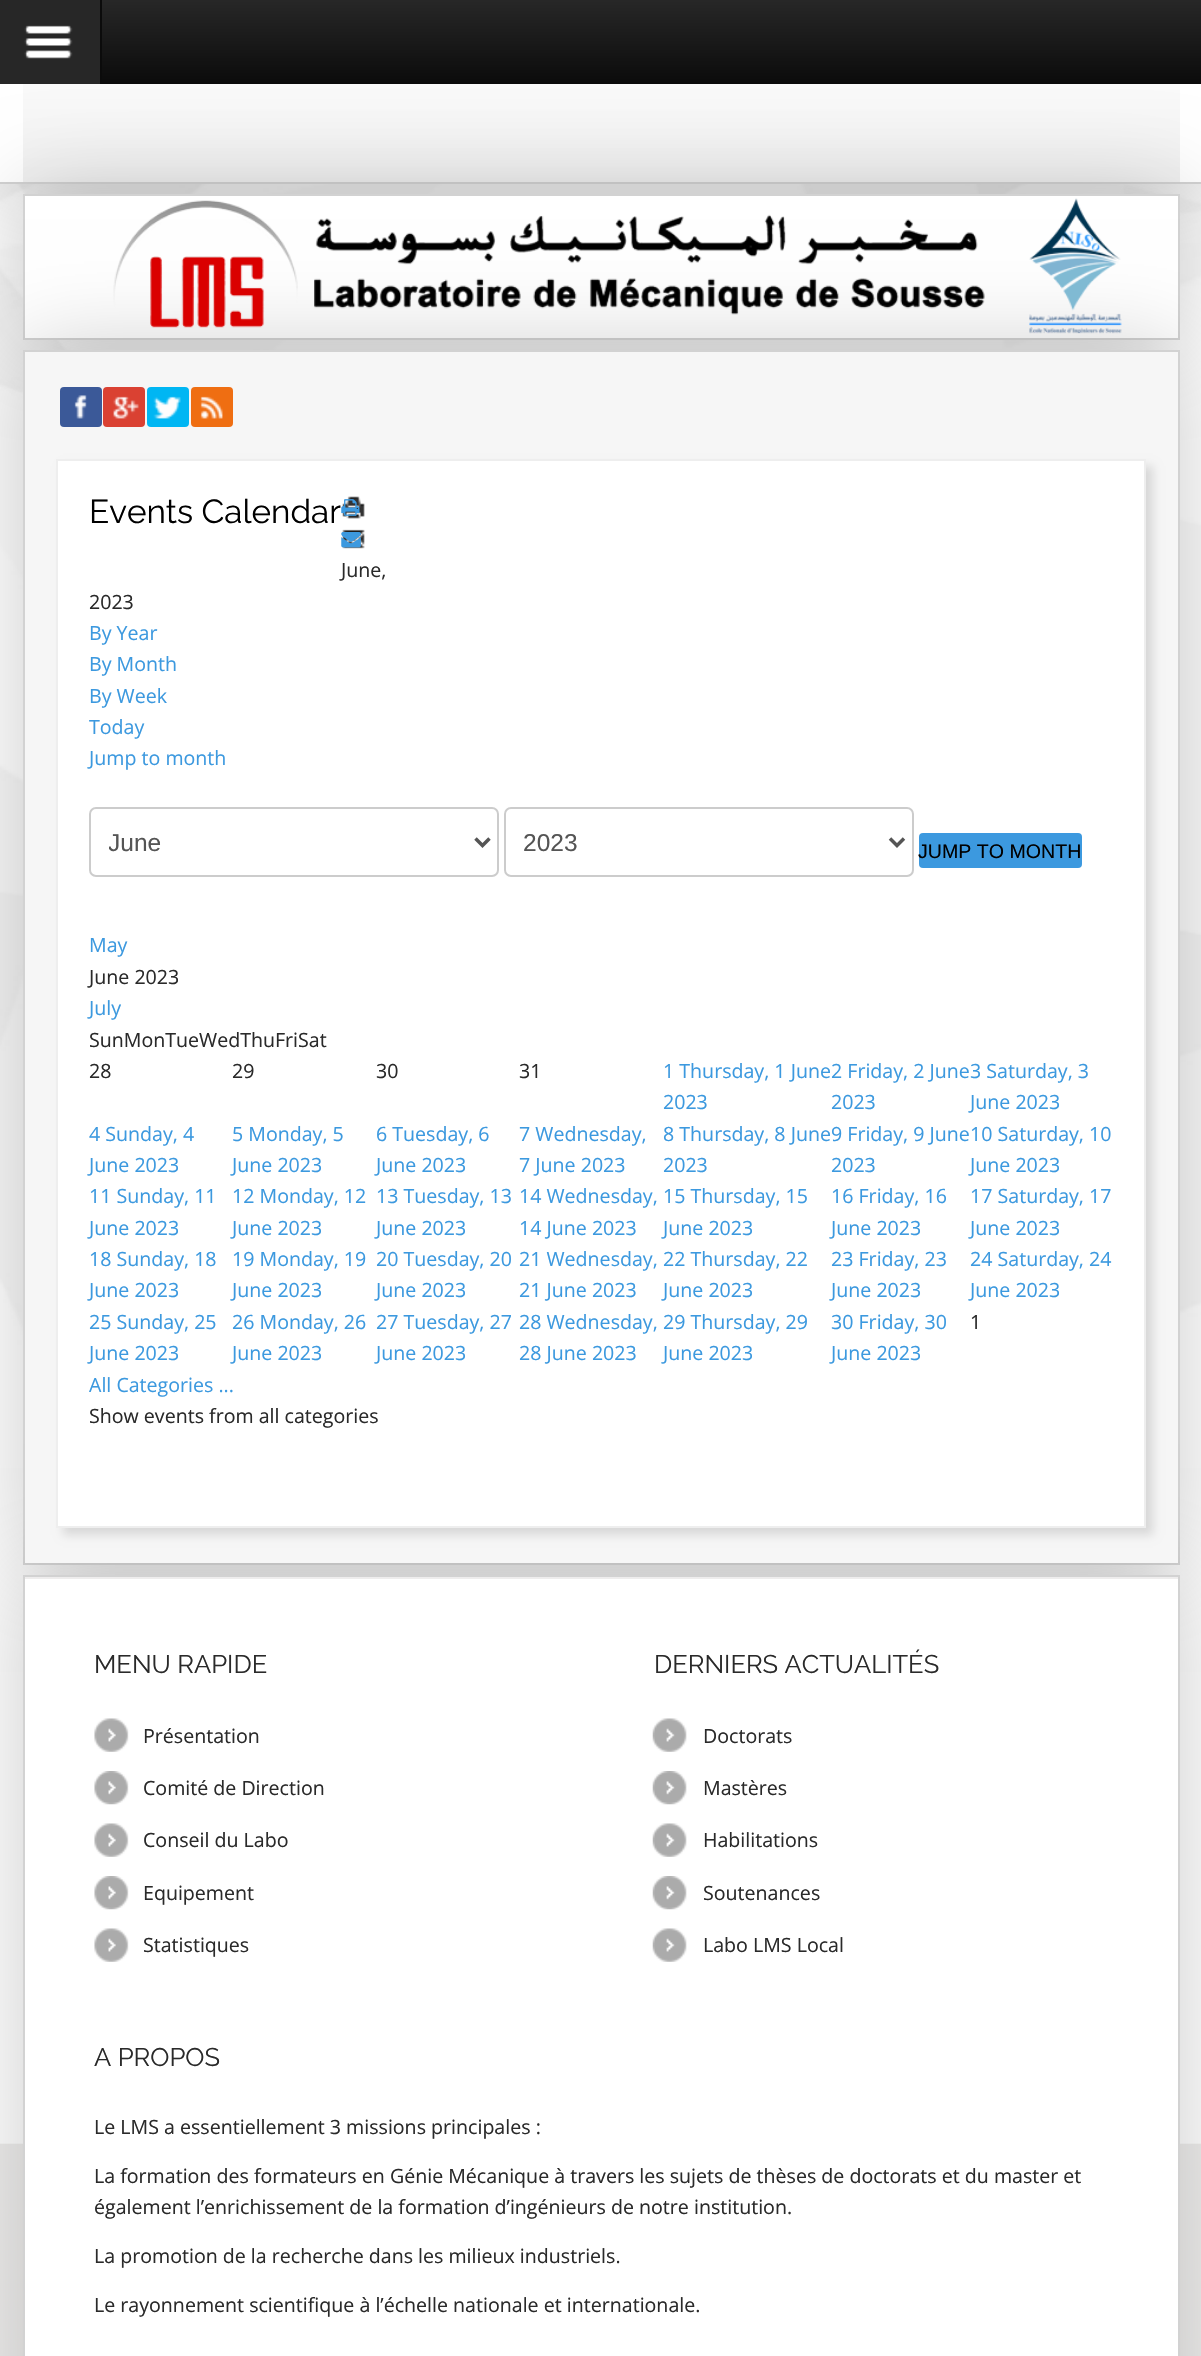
static SkFont makeFont(const char* family, int weight, float size, bool italic = false) {
  SkFontStyle style(weight, SkFontStyle::kNormal_Width,
    italic ? SkFontStyle::kItalic_Slant : SkFontStyle::kUpright_Slant);
  SkFont result(fontMgr->matchFamilyStyle(family, style), size);
  result.setSubpixel(true);
  return result;
}

static void text(SkCanvas* c, const char* s, float x, float y, const SkFont& font, SkColor color) {
  SkPaint ink(SkColor4f::FromColor(color));
  ink.setAntiAlias(true);
  c->drawString(s, x, y, font, ink);
}

static void box(SkCanvas* c, float l, float t, float r, float b, SkColor color) {
  SkPaint ink(SkColor4f::FromColor(color));
  ink.setAntiAlias(true);
  c->drawRect(SkRect::MakeLTRB(l, t, r, b), ink);
}

static void roundBox(SkCanvas* c, float l, float t, float r, float b, float radius, SkColor color) {
  SkPaint ink(SkColor4f::FromColor(color));
  ink.setAntiAlias(true);
  c->drawRoundRect(SkRect::MakeLTRB(l, t, r, b), radius, radius, ink);
}

static void picture(SkCanvas* c, const char* path, float l, float t, float r, float b) {
  auto image = SkImages::DeferredFromEncodedData(SkData::MakeFromFileName(path));
  c->drawImageRect(image, SkRect::MakeLTRB(l, t, r, b), SkSamplingOptions());
}

void draw(SkCanvas* c) {
  SkPaint paint;
  paint.setAntiAlias(true);
  c->clear(0xffeeedec);
  picture(c, "img_01.png", 0, 184, 1201, 2144);
  paint.setColor(0x33000000);
  paint.setMaskFilter(SkMaskFilter::MakeBlur(kNormal_SkBlurStyle, 44));
  c->drawRect(SkRect::MakeLTRB(0, 84, 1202, 184), paint);
  paint.setMaskFilter(nullptr);
  box(c, 0, 84, 1201, 182, 0xffffffff);
  box(c, 0, 182, 1201, 184, 0xffd2d2d2);
  {
    const SkColor colors[] = {0xfffafafa, 0xfff0f0f0};
    const float stops[] = {0, 1};
    const SkPoint ends[] = {{601, 84}, {601, 182}};
    paint.setShader(SkGradientShader::MakeLinear(ends, colors, stops, 2, SkTileMode::kClamp));
    paint.setAlpha(255);
  }
  c->drawRect(SkRect::MakeLTRB(23, 84, 1180, 182), paint);
  paint.setShader(nullptr);
  paint.setColor(0x33000000);
  paint.setMaskFilter(SkMaskFilter::MakeBlur(kNormal_SkBlurStyle, 44));
  c->drawRect(SkRect::MakeLTRB(23, 194, 1180, 340), paint);
  paint.setMaskFilter(nullptr);
  {
    const SkColor colors[] = {0xff272727, 0xff0b0b0b};
    const float stops[] = {0, 1};
    const SkPoint ends[] = {{601, 0}, {601, 84}};
    paint.setShader(SkGradientShader::MakeLinear(ends, colors, stops, 2, SkTileMode::kClamp));
    paint.setAlpha(255);
  }
  c->drawRect(SkRect::MakeLTRB(102, 0, 1201, 84), paint);
  box(c, 0, 0, 100, 84, 0xff272727);
  box(c, 100, 0, 102, 84, 0xff0b0b0b);
  picture(c, "img_02.png", 24, 25, 73, 59);
  paint.setShader(nullptr);
  paint.setColor(0xffffffff);
  c->drawRect(SkRect::MakeLTRB(24, 195, 1179, 339), paint);
  paint.setStyle(SkPaint::kStroke_Style);
  paint.setStrokeWidth(2);
  paint.setColor(0xffd2d2d2);
  c->drawRect(SkRect::MakeLTRB(24, 195, 1179, 339), paint);
  paint.setStyle(SkPaint::kFill_Style);
  paint.setColor(0x33000000);
  paint.setMaskFilter(SkMaskFilter::MakeBlur(kNormal_SkBlurStyle, 44));
  c->drawRect(SkRect::MakeLTRB(23, 350, 1180, 1565), paint);
  paint.setMaskFilter(nullptr);
  picture(c, "img_03.png", 113, 198, 1122, 334);
  paint.setStyle(SkPaint::kStroke_Style);
  paint.setColor(0xffd2d2d2);
  c->drawRect(SkRect::MakeLTRB(24, 351, 1179, 1564), paint);
  paint.setStyle(SkPaint::kFill_Style);
  paint.setColor(0x33000000);
  paint.setMaskFilter(SkMaskFilter::MakeBlur(kNormal_SkBlurStyle, 44));
  c->drawRect(SkRect::MakeLTRB(23, 1575, 1180, 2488), paint);
  paint.setMaskFilter(nullptr);
  box(c, 25, 352, 1178, 1563, 0xfff6f6f6);
  roundBox(c, 60, 387, 102, 427, 4, 0xff3b5998);
  picture(c, "img_04.png", 74, 395, 87, 419);
  roundBox(c, 103, 387, 145, 427, 4, 0xffda4132);
  picture(c, "img_05.png", 113, 396, 139, 419);
  roundBox(c, 147, 387, 189, 427, 4, 0xff00b6f3);
  picture(c, "img_06.png", 153, 396, 181, 419);
  roundBox(c, 191, 387, 233, 427, 4, 0xffef6e12);
  picture(c, "img_07.png", 200, 396, 223, 419);
  paint.setColor(0x1f000000);
  paint.setMaskFilter(SkMaskFilter::MakeBlur(kNormal_SkBlurStyle, 4.5f));
  c->drawRect(SkRect::MakeLTRB(63, 466, 1153, 1535), paint);
  paint.setMaskFilter(nullptr);
  paint.setColor(0xffffffff);
  c->drawRect(SkRect::MakeLTRB(57, 460, 1145, 1527), paint);
  paint.setStyle(SkPaint::kStroke_Style);
  paint.setColor(0xffeeeeee);
  c->drawRect(SkRect::MakeLTRB(57, 460, 1145, 1527), paint);
  SkFont face1 = makeFont("Raleway", 100, 33.25f);
  text(c, "Events Calendar", 89, 523, face1, 0xff000000);
  picture(c, "img_08.png", 342, 496, 365, 519);
  picture(c, "img_09.png", 341, 499, 360, 516);
  picture(c, "img_10.png", 342, 529, 365, 549);
  picture(c, "img_11.png", 341, 532, 361, 548);
  SkFont face2 = makeFont("Open Sans", 400, 19.6f);
  text(c, "June,", 341, 577, face2, 0xff2a2a2a);
  text(c, "2023", 89, 609, face2, 0xff2a2a2a);
  text(c, "By Year", 89, 640, face2, 0xff3c99df);
  text(c, "By Month", 89, 671, face2, 0xff3c99df);
  text(c, "By Week", 89, 703, face2, 0xff3c99df);
  text(c, "Today", 89, 734, face2, 0xff3c99df);
  text(c, "Jump to month", 89, 765, face2, 0xff3c99df);
  paint.setColor(0xffcccccc);
  c->drawRoundRect(SkRect::MakeLTRB(90, 808, 498, 876), 6, 6, paint);
  paint.setStrokeWidth(3.5f);
  paint.setColor(0xff555555);
  c->drawPath(SkPathBuilder().moveTo(475.5f, 838.5f).lineTo(482.5f, 845.5f).lineTo(489.5f, 838.5f).detach(), paint);
  c->save();
  c->clipRect(SkRect::MakeLTRB(109, 826, 459, 858));
  SkFont face3 = makeFont("Liberation Sans", 400, 24.5f);
  text(c, "June", 108, 851, face3, 0xff555555);
  c->restore();
  paint.setStrokeWidth(2);
  paint.setColor(0xffcccccc);
  c->drawRoundRect(SkRect::MakeLTRB(505, 808, 913, 876), 6, 6, paint);
  paint.setStrokeWidth(3.5f);
  paint.setColor(0xff555555);
  c->drawPath(SkPathBuilder().moveTo(890, 838.5f).lineTo(897, 845.5f).lineTo(904, 838.5f).detach(), paint);
  text(c, "2023", 523, 851, face3, 0xff555555);
  roundBox(c, 919, 833, 1082, 868, 4, 0xff3c99df);
  SkFont face4 = makeFont("Liberation Sans", 400, 19.6f);
  text(c, "JUMP TO MONTH", 918, 858, face4, 0xff000000);
  text(c, "May", 89, 952, face2, 0xff3c99df);
  text(c, "June 2023", 89, 984, face2, 0xff2a2a2a);
  text(c, "July", 89, 1015, face2, 0xff3c99df);
  text(c, "SunMonTueWedThuFriSat", 89, 1047, face2, 0xff2a2a2a);
  text(c, "28", 89, 1078, face2, 0xff2a2a2a);
  text(c, "29", 232, 1078, face2, 0xff2a2a2a);
  text(c, "30", 376, 1078, face2, 0xff2a2a2a);
  text(c, "31", 519, 1078, face2, 0xff2a2a2a);
  text(c, "1 Thursday, 1 June", 663, 1078, face2, 0xff3c99df);
  text(c, "2023", 663, 1109, face2, 0xff3c99df);
  text(c, "2 Friday, 2 June", 831, 1078, face2, 0xff3c99df);
  text(c, "2023", 831, 1109, face2, 0xff3c99df);
  text(c, "3 Saturday, 3", 970, 1078, face2, 0xff3c99df);
  text(c, "June 2023", 970, 1109, face2, 0xff3c99df);
  text(c, "4 Sunday, 4", 89, 1141, face2, 0xff3c99df);
  text(c, "June 2023", 89, 1172, face2, 0xff3c99df);
  text(c, "5 Monday, 5", 232, 1141, face2, 0xff3c99df);
  text(c, "June 2023", 232, 1172, face2, 0xff3c99df);
  text(c, "6 Tuesday, 6", 376, 1141, face2, 0xff3c99df);
  text(c, "June 2023", 376, 1172, face2, 0xff3c99df);
  text(c, "7 Wednesday,", 519, 1141, face2, 0xff3c99df);
  text(c, "7 June 2023", 519, 1172, face2, 0xff3c99df);
  text(c, "8 Thursday, 8 June", 663, 1141, face2, 0xff3c99df);
  text(c, "2023", 663, 1172, face2, 0xff3c99df);
  text(c, "9 Friday, 9 June", 831, 1141, face2, 0xff3c99df);
  text(c, "2023", 831, 1172, face2, 0xff3c99df);
  text(c, "10 Saturday, 10", 970, 1141, face2, 0xff3c99df);
  text(c, "June 2023", 970, 1172, face2, 0xff3c99df);
  text(c, "11 Sunday, 11", 89, 1203, face2, 0xff3c99df);
  text(c, "June 2023", 89, 1235, face2, 0xff3c99df);
  text(c, "12 Monday, 12", 232, 1203, face2, 0xff3c99df);
  text(c, "June 2023", 232, 1235, face2, 0xff3c99df);
  text(c, "13 Tuesday, 13", 376, 1203, face2, 0xff3c99df);
  text(c, "June 2023", 376, 1235, face2, 0xff3c99df);
  text(c, "14 Wednesday,", 519, 1203, face2, 0xff3c99df);
  text(c, "14 June 2023", 519, 1235, face2, 0xff3c99df);
  text(c, "15 Thursday, 15", 663, 1203, face2, 0xff3c99df);
  text(c, "June 2023", 663, 1235, face2, 0xff3c99df);
  text(c, "16 Friday, 16", 831, 1203, face2, 0xff3c99df);
  text(c, "June 2023", 831, 1235, face2, 0xff3c99df);
  text(c, "17 Saturday, 17", 970, 1203, face2, 0xff3c99df);
  text(c, "June 2023", 970, 1235, face2, 0xff3c99df);
  text(c, "18 Sunday, 18", 89, 1266, face2, 0xff3c99df);
  text(c, "June 2023", 89, 1297, face2, 0xff3c99df);
  text(c, "19 Monday, 19", 232, 1266, face2, 0xff3c99df);
  text(c, "June 2023", 232, 1297, face2, 0xff3c99df);
  text(c, "20 Tuesday, 20", 376, 1266, face2, 0xff3c99df);
  text(c, "June 2023", 376, 1297, face2, 0xff3c99df);
  text(c, "21 Wednesday,", 519, 1266, face2, 0xff3c99df);
  text(c, "21 June 2023", 519, 1297, face2, 0xff3c99df);
  text(c, "22 Thursday, 22", 663, 1266, face2, 0xff3c99df);
  text(c, "June 2023", 663, 1297, face2, 0xff3c99df);
  text(c, "23 Friday, 23", 831, 1266, face2, 0xff3c99df);
  text(c, "June 2023", 831, 1297, face2, 0xff3c99df);
  text(c, "24 Saturday, 24", 970, 1266, face2, 0xff3c99df);
  text(c, "June 2023", 970, 1297, face2, 0xff3c99df);
  text(c, "25 Sunday, 25", 89, 1329, face2, 0xff3c99df);
  text(c, "June 2023", 89, 1360, face2, 0xff3c99df);
  text(c, "26 Monday, 26", 232, 1329, face2, 0xff3c99df);
  text(c, "June 2023", 232, 1360, face2, 0xff3c99df);
  text(c, "27 Tuesday, 27", 376, 1329, face2, 0xff3c99df);
  text(c, "June 2023", 376, 1360, face2, 0xff3c99df);
  text(c, "28 Wednesday,", 519, 1329, face2, 0xff3c99df);
  text(c, "28 June 2023", 519, 1360, face2, 0xff3c99df);
  text(c, "29 Thursday, 29", 663, 1329, face2, 0xff3c99df);
  text(c, "June 2023", 663, 1360, face2, 0xff3c99df);
  text(c, "30 Friday, 30", 831, 1329, face2, 0xff3c99df);
  text(c, "June 2023", 831, 1360, face2, 0xff3c99df);
  text(c, "1", 970, 1329, face2, 0xff2a2a2a);
  text(c, "All Categories ...", 89, 1392, face2, 0xff3c99df);
  text(c, "Show events from all categories", 89, 1423, face2, 0xff2a2a2a);
  box(c, 25, 1579, 1178, 2356, 0xffffffff);
  paint.setStrokeWidth(2);
  paint.setColor(0xffd2d2d2);
  c->drawRect(SkRect::MakeLTRB(24, 1576, 1179, 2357), paint);
  box(c, 25, 1577, 1178, 1579, 0xffeeeded);
  SkFont face5 = makeFont("Raleway", 100, 25.5f);
  text(c, "MENU RAPIDE", 94, 1673, face5, 0xff2a2a2a);
  picture(c, "img_12.png", 94, 1718, 129, 1752);
  text(c, "Présentation", 143, 1743, face2, 0xff2a2a2a);
  picture(c, "img_13.png", 94, 1771, 129, 1805);
  text(c, "Comité de Direction", 143, 1795, face2, 0xff2a2a2a);
  picture(c, "img_14.png", 94, 1823, 129, 1857);
  text(c, "Conseil du Labo", 143, 1847, face2, 0xff2a2a2a);
  picture(c, "img_15.png", 94, 1876, 129, 1910);
  text(c, "Equipement", 143, 1900, face2, 0xff2a2a2a);
  picture(c, "img_12.png", 94, 1928, 129, 1962);
  text(c, "Statistiques", 143, 1952, face2, 0xff2a2a2a);
  text(c, "DERNIERS ACTUALITÉS", 654, 1673, face5, 0xff2a2a2a);
  picture(c, "img_16.png", 652, 1718, 687, 1752);
  text(c, "Doctorats", 703, 1743, face2, 0xff2a2a2a);
  picture(c, "img_17.png", 652, 1771, 687, 1805);
  text(c, "Mastères", 703, 1795, face2, 0xff2a2a2a);
  picture(c, "img_18.png", 652, 1823, 687, 1857);
  text(c, "Habilitations", 703, 1847, face2, 0xff2a2a2a);
  picture(c, "img_19.png", 652, 1876, 687, 1910);
  text(c, "Soutenances", 703, 1900, face2, 0xff2a2a2a);
  picture(c, "img_16.png", 652, 1928, 687, 1962);
  text(c, "Labo LMS Local", 703, 1952, face2, 0xff2a2a2a);
  text(c, "A PROPOS", 94, 2066, face5, 0xff2a2a2a);
  text(c, "Le LMS a essentiellement 3 missions principales :", 94, 2134, face2, 0xff2a2a2a);
  text(c, "La formation des formateurs en Génie Mécanique à travers les sujets de thèses de doctorats et du master et", 94, 2183, face2, 0xff2a2a2a);
  text(c, "également l’enrichissement de la formation d’ingénieurs de notre institution.", 94, 2214, face2, 0xff2a2a2a);
  text(c, "La promotion de la recherche dans les milieux industriels.", 94, 2263, face2, 0xff2a2a2a);
  text(c, "Le rayonnement scientifique à l’échelle nationale et internationale.", 94, 2312, face2, 0xff2a2a2a);
}
